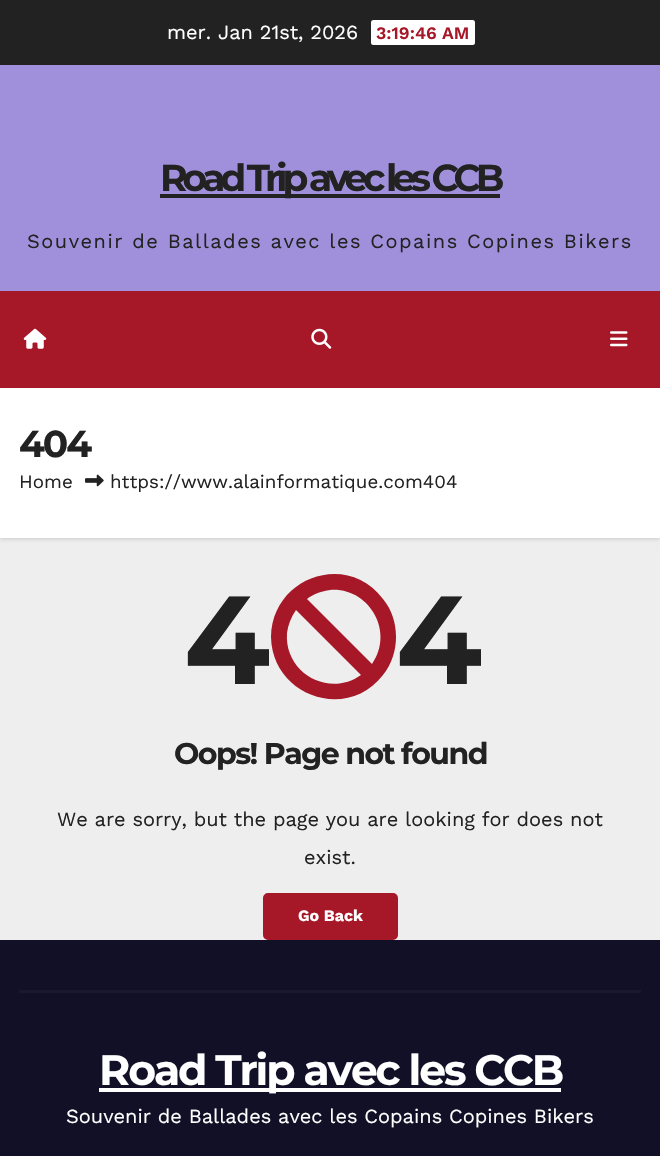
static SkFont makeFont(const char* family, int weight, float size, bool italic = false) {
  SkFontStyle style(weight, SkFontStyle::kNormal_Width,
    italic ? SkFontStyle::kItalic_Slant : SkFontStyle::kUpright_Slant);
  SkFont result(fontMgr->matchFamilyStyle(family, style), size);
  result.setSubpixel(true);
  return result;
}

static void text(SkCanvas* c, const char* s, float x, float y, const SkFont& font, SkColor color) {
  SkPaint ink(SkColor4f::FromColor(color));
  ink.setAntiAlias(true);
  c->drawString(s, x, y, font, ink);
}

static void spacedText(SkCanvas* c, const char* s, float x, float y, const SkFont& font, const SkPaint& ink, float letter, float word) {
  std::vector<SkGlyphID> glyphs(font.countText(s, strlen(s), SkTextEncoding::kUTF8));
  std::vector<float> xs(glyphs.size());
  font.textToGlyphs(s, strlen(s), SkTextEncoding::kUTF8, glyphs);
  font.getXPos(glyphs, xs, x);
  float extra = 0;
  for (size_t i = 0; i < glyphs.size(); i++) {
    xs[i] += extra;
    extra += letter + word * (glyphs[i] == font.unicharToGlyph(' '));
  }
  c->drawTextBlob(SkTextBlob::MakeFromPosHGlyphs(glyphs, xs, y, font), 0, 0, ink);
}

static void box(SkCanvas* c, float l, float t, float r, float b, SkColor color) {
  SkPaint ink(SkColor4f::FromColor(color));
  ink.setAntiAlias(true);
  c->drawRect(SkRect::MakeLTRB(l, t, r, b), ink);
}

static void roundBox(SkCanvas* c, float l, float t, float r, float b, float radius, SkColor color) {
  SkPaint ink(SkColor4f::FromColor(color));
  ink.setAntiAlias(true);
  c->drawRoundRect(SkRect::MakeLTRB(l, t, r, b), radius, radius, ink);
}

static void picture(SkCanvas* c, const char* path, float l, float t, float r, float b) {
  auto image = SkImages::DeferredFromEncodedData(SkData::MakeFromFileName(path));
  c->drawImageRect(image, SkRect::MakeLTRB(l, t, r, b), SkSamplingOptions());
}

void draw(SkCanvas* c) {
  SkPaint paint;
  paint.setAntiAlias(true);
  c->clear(0xffeeeeee);
  box(c, 0, 0, 660, 65, 0xff222222);
  SkFont face1 = makeFont("Work Sans", 400, 20);
  text(c, "mer. Jan 21st, 2026", 167, 39, face1, 0xffffffff);
  roundBox(c, 371, 20, 475, 45, 2.5f, 0xffffffff);
  SkFont face2 = makeFont("Work Sans", 600, 17.5f);
  text(c, "3:19:46 AM", 376, 39, face2, 0xffa61727);
  box(c, 0, 65, 660, 291, 0xffa08fdb);
  box(c, 160, 194, 500, 198, 0xff222222);
  SkFont face3 = makeFont("Montserrat", 700, 37.5f);
  paint.setColor(0xff222222);
  spacedText(c, "Road Trip avec les CCB", 160, 191, face3, paint, -5, 0);
  spacedText(c, "Souvenir de Ballades avec les Copains Copines Bikers", 27, 248, face1, paint, 1.5f, 0);
  paint.setColor(0x26000000);
  paint.setMaskFilter(SkMaskFilter::MakeBlur(kNormal_SkBlurStyle, 2));
  c->drawRect(SkRect::MakeLTRB(0, 389, 660, 539), paint);
  paint.setMaskFilter(nullptr);
  box(c, 0, 291, 660, 388, 0xffa61727);
  picture(c, "img_01.png", 23, 328, 47, 349);
  picture(c, "img_02.png", 311, 328, 332, 349);
  picture(c, "img_03.png", 610, 331, 628, 347);
  box(c, 0, 388, 660, 538, 0xffffffff);
  paint.setColor(0xff222222);
  spacedText(c, "404", 19, 457, face3, paint, -2, 0);
  SkFont face4 = makeFont("Work Sans", 400, 18.75f);
  text(c, "Home", 19, 488, face4, 0xff222222);
  picture(c, "img_04.png", 85, 474, 104, 487);
  text(c, "https://www.alainformatique.com404", 110, 488, face4, 0xff222222);
  SkFont face5 = makeFont("Montserrat", 700, 125);
  spacedText(c, "4", 184, 684, face5, paint, -6, 0);
  paint.setColor(0xffa61727);
  c->drawPath(SkPathBuilder().moveTo(361, 675).lineTo(296, 610).cubicTo(291, 617, 288, 625, 287, 633).cubicTo(284, 673, 329, 698, 361, 675).close().moveTo(372, 664).cubicTo(395, 632, 369, 587, 330, 590).cubicTo(322, 591, 313, 594, 307, 599).close().moveTo(271, 637).cubicTo(272, 577, 347, 551, 383, 599).cubicTo(392, 610, 396, 623, 396, 637).cubicTo(396, 650, 392, 664, 383, 675).cubicTo(347, 722, 272, 696, 271, 637).close().detach(), paint);
  paint.setColor(0xff222222);
  spacedText(c, "4", 396, 684, face5, paint, -6, 0);
  SkFont face6 = makeFont("Montserrat", 700, 30);
  spacedText(c, "Oops! Page not found", 174, 764, face6, paint, -1.5f, 0);
  text(c, "We are sorry, but the page you are looking for does not", 57, 826, face1, 0xff222222);
  text(c, "exist.", 304, 864, face1, 0xff222222);
  paint.setColor(0xffa61727);
  c->drawRoundRect(SkRect::MakeLTRB(264.5f, 894.5f, 396.5f, 938.5f), 3.5f, 3.5f, paint);
  paint.setStyle(SkPaint::kStroke_Style);
  paint.setStrokeWidth(3);
  c->drawRoundRect(SkRect::MakeLTRB(264.5f, 894.5f, 396.5f, 938.5f), 3.5f, 3.5f, paint);
  SkFont face7 = makeFont("Work Sans", 700, 16);
  text(c, "Go Back", 298, 921, face7, 0xffffffff);
  box(c, 0, 940, 660, 1156, 0xff121026);
  box(c, 19, 990, 641, 993, 0xff1a182e);
  box(c, 99, 1088, 561, 1092, 0xffffffff);
  SkFont face8 = makeFont("Montserrat", 700, 42.5f);
  paint.setStyle(SkPaint::kFill_Style);
  paint.setColor(0xffffffff);
  spacedText(c, "Road Trip avec les CCB", 99, 1085, face8, paint, -2.1f, 0);
  text(c, "Souvenir de Ballades avec les Copains Copines Bikers", 66, 1123, face1, 0xffffffff);
}
